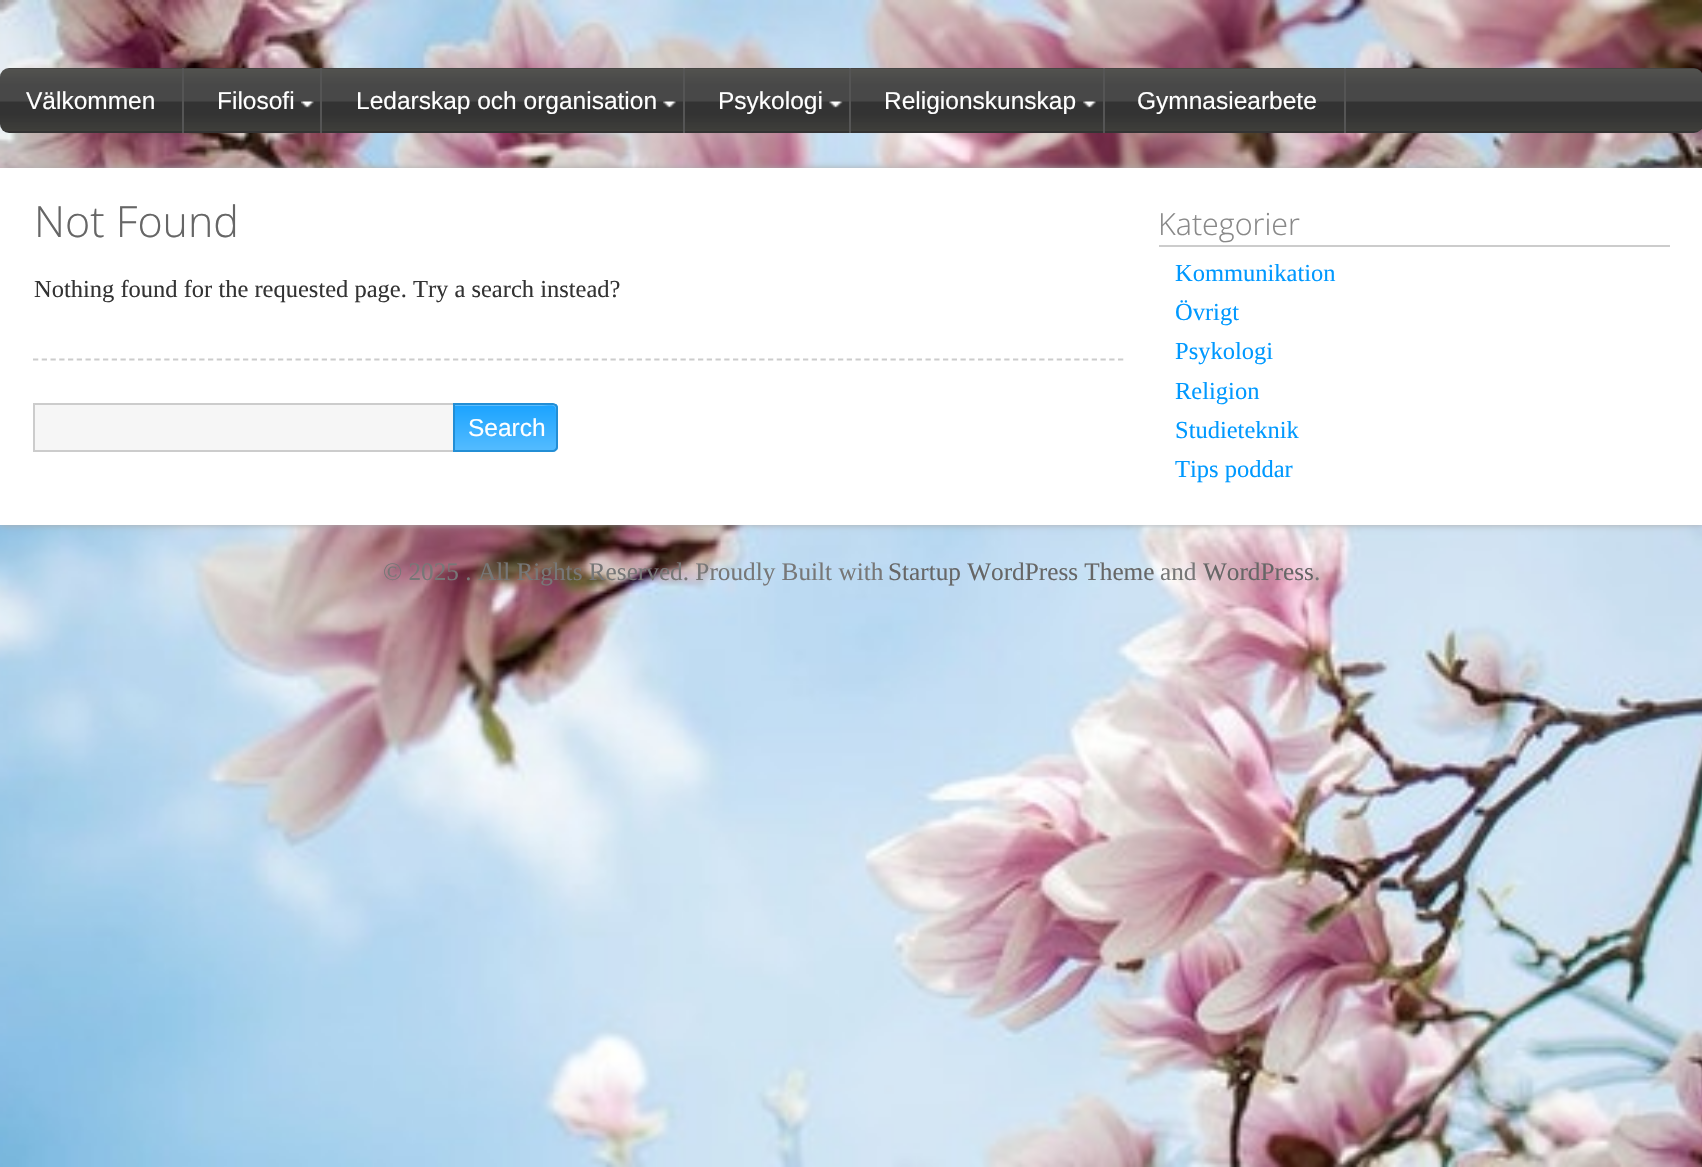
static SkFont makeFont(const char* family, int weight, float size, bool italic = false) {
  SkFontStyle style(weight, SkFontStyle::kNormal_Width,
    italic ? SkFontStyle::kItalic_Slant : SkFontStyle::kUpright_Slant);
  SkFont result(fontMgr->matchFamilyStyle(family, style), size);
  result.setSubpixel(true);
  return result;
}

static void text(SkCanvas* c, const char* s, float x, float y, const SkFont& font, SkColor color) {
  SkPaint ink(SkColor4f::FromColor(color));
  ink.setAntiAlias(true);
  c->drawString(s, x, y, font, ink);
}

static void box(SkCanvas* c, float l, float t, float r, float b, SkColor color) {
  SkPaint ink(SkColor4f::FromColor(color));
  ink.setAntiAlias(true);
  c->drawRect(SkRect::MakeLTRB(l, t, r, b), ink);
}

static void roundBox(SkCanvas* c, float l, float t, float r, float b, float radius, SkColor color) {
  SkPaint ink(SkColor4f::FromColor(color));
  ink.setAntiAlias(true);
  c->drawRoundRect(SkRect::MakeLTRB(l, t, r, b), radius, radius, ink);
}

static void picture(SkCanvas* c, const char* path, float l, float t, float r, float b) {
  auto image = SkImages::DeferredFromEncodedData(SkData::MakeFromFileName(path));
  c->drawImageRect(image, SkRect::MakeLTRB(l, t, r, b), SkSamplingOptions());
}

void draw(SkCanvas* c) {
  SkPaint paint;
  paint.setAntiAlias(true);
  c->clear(0xffffffff);
  picture(c, "img_01.png", 0, 0, 1702, 1167);
  roundBox(c, 0, 68, 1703, 133, 9, 0xff333333);
  picture(c, "img_02.png", 0, 68, 1702, 131);
  box(c, 182, 68, 184, 133, 0xff555555);
  SkFont face1 = makeFont("Liberation Sans", 400, 24.5f);
  text(c, "Välkommen", 26, 109, face1, 0xffffffff);
  picture(c, "img_03.png", 301, 101, 314, 108);
  box(c, 320, 68, 322, 133, 0xff555555);
  text(c, "Filosofi", 217, 109, face1, 0xffffffff);
  picture(c, "img_04.png", 663, 101, 676, 108);
  box(c, 683, 68, 685, 133, 0xff555555);
  text(c, "Ledarskap och organisation", 356, 109, face1, 0xffffffff);
  picture(c, "img_05.png", 829, 101, 843, 108);
  box(c, 849, 68, 851, 133, 0xff555555);
  text(c, "Psykologi", 718, 109, face1, 0xffffffff);
  picture(c, "img_04.png", 1083, 101, 1096, 108);
  box(c, 1103, 68, 1105, 133, 0xff555555);
  text(c, "Religionskunskap", 884, 109, face1, 0xffffffff);
  box(c, 1344, 68, 1346, 133, 0xff555555);
  text(c, "Gymnasiearbete", 1137, 109, face1, 0xffffffff);
  paint.setColor(0xffaaaaaa);
  paint.setMaskFilter(SkMaskFilter::MakeBlur(kNormal_SkBlurStyle, 3.5f));
  c->drawRect(SkRect::MakeLTRB(0, 168, 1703, 525), paint);
  paint.setMaskFilter(nullptr);
  box(c, 0, 168, 1702, 525, 0xffffffff);
  paint.setStyle(SkPaint::kStroke_Style);
  paint.setStrokeWidth(1.8f);
  paint.setColor(0xffcccccc);
  paint.setPathEffect(SkDashPathEffect::Make({{5.25f, 3.5f}}, 0));
  c->drawPath(SkPathBuilder().moveTo(33, 359.5f).lineTo(1123.5f, 359.5f).detach(), paint);
  paint.setPathEffect(nullptr);
  SkFont face2 = makeFont("Open Sans", 300, 43);
  text(c, "Not Found", 34, 237, face2, 0xff666666);
  SkFont face3 = makeFont("Liberation Serif", 400, 24.5f);
  text(c, "Nothing found for the requested page. Try a search instead?", 34, 297, face3, 0xff333333);
  box(c, 35, 405, 453, 450, 0xfff6f6f6);
  box(c, 33, 403, 453, 405, 0xffcccccc);
  box(c, 33, 450, 453, 452, 0xffcccccc);
  box(c, 33, 403, 35, 452, 0xffcccccc);
  c->save();
  c->clipPath(SkPathBuilder().moveTo(453, 403).lineTo(553, 403).cubicTo(556, 403, 558, 405, 558, 408).lineTo(558, 447).cubicTo(558, 450, 556, 452, 553, 452).lineTo(453, 452).close().detach(), true);
  paint.setStyle(SkPaint::kFill_Style);
  {
    const SkColor colors[] = {0xff53bbff, 0xff1aa3ff};
    const float stops[] = {0, 1};
    const SkPoint ends[] = {{506, 450}, {506, 404}};
    paint.setShader(SkGradientShader::MakeLinear(ends, colors, stops, 2, SkTileMode::kClamp));
    paint.setAlpha(255);
  }
  c->drawRect(SkRect::MakeLTRB(455, 404, 558, 450), paint);
  c->restore();
  paint.setShader(nullptr);
  paint.setColor(0xff5ebdfd);
  c->drawPath(SkPathBuilder().moveTo(455, 406).lineTo(537, 406).cubicTo(555, 406, 556, 402, 556, 416).lineTo(556, 449).cubicTo(557, 448, 557, 447, 557, 446).lineTo(557, 408).cubicTo(557, 406, 555, 404, 553, 404).lineTo(455, 404).close().detach(), paint);
  paint.setStyle(SkPaint::kStroke_Style);
  paint.setStrokeWidth(2);
  paint.setColor(0xff238ed5);
  c->drawPath(SkPathBuilder().moveTo(454, 404).lineTo(553, 404).cubicTo(555, 404, 557, 406, 557, 408).lineTo(557, 447).cubicTo(557, 449, 555, 451, 553, 451).lineTo(454, 451).close().detach(), paint);
  text(c, "Search", 468, 436, face1, 0xffffffff);
  box(c, 1159, 245, 1670, 247, 0xffcccccc);
  SkFont face4 = makeFont("Open Sans", 300, 30.5f);
  text(c, "Kategorier", 1158, 235, face4, 0xff888888);
  text(c, "Kommunikation", 1175, 281, face3, 0xff0099ff);
  text(c, "Övrigt", 1175, 320, face3, 0xff0099ff);
  text(c, "Psykologi", 1175, 359, face3, 0xff0099ff);
  text(c, "Religion", 1175, 399, face3, 0xff0099ff);
  text(c, "Studieteknik", 1175, 438, face3, 0xff0099ff);
  text(c, "Tips poddar", 1175, 477, face3, 0xff0099ff);
  SkFont face5 = makeFont("Liberation Serif", 400, 25.25f);
  text(c, "© 2025 . All Rights Reserved. Proudly Built with", 383, 580, face5, 0xff777777);
  text(c, "Startup WordPress Theme", 888, 580, face5, 0xff666666);
  text(c, "and", 1160, 580, face5, 0xff777777);
  text(c, "WordPress", 1203, 580, face5, 0xff666666);
  text(c, ".", 1314, 580, face5, 0xff777777);
}
